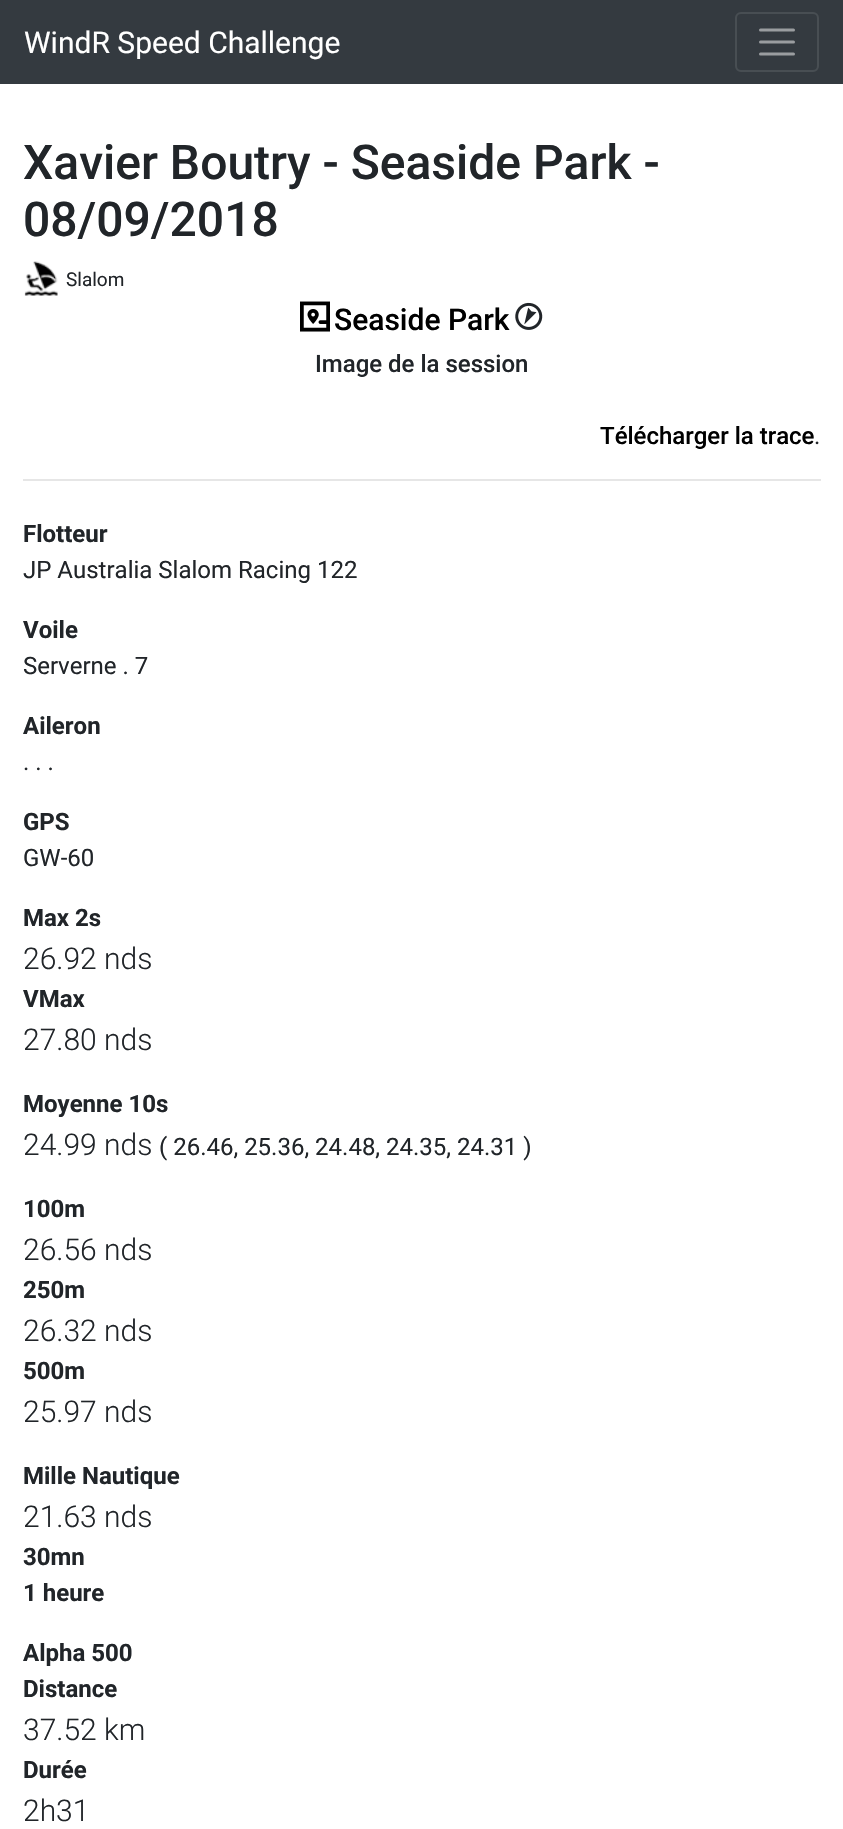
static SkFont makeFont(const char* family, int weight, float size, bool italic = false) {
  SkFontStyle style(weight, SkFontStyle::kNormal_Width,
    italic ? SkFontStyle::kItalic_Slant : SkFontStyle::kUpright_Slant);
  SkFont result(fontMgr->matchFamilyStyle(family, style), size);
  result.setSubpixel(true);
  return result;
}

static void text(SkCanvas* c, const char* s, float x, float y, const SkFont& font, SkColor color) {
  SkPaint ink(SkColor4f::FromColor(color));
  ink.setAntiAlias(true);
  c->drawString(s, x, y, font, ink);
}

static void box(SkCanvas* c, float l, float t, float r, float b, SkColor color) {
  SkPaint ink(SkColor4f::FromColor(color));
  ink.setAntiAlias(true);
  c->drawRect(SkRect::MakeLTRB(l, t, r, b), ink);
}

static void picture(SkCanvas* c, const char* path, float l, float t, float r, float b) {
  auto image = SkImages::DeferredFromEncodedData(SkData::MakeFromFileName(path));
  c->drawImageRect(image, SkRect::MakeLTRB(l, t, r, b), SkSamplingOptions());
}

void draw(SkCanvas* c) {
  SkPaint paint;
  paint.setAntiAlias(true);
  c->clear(0xffffffff);
  box(c, 0, 0, 843, 84, 0xff343a40);
  SkFont face1 = makeFont("Roboto", 400, 30);
  text(c, "WindR Speed Challenge", 24, 53, face1, 0xffffffff);
  paint.setStyle(SkPaint::kStroke_Style);
  paint.setStrokeWidth(2);
  paint.setColor(0xff484e53);
  c->drawRoundRect(SkRect::MakeLTRB(736, 13, 818, 71), 5, 5, paint);
  paint.setStrokeWidth(3);
  paint.setStrokeCap(SkPaint::kRound_Cap);
  paint.setColor(0xff9a9da0);
  c->drawPath(SkPathBuilder().moveTo(760.5f, 30).lineTo(793.5f, 30).moveTo(760.5f, 42).lineTo(793.5f, 42).moveTo(760.5f, 54).lineTo(793.5f, 54).detach(), paint);
  SkFont face2 = makeFont("Roboto", 500, 48);
  text(c, "Xavier Boutry - Seaside Park -", 23, 179, face2, 0xff212529);
  text(c, "08/09/2018", 23, 236, face2, 0xff212529);
  picture(c, "img_01.png", 24, 261, 58, 296);
  SkFont face3 = makeFont("Roboto", 400, 19);
  text(c, "Slalom", 66, 286, face3, 0xff212529);
  picture(c, "img_02.png", 300, 301, 330, 332);
  SkFont face4 = makeFont("Roboto", 500, 30);
  text(c, "Seaside Park", 334, 330, face4, 0xff000000);
  picture(c, "img_03.png", 515, 302, 543, 330);
  SkFont face5 = makeFont("Roboto", 500, 24);
  text(c, "Image de la session", 315, 372, face5, 0xff212529);
  text(c, "Télécharger la trace", 600, 444, face5, 0xff000000);
  SkFont face6 = makeFont("Roboto", 400, 24);
  text(c, ".", 814, 444, face6, 0xff212529);
  box(c, 23, 479, 821, 481, 0xffe6e6e6);
  SkFont face7 = makeFont("Roboto", 700, 24);
  text(c, "Flotteur", 23, 542, face7, 0xff212529);
  text(c, "JP Australia Slalom Racing 122", 23, 578, face6, 0xff212529);
  text(c, "Voile", 23, 638, face7, 0xff212529);
  text(c, "Serverne . 7", 23, 674, face6, 0xff212529);
  text(c, "Aileron", 23, 734, face7, 0xff212529);
  text(c, ". . .", 23, 770, face6, 0xff212529);
  text(c, "GPS", 23, 830, face7, 0xff212529);
  text(c, "GW-60", 23, 866, face6, 0xff212529);
  text(c, "Max 2s", 23, 926, face7, 0xff212529);
  SkFont face8 = makeFont("Roboto", 300, 30);
  text(c, "26.92 nds", 23, 969, face8, 0xff212529);
  text(c, "VMax", 23, 1007, face7, 0xff212529);
  text(c, "27.80 nds", 23, 1050, face8, 0xff212529);
  text(c, "Moyenne 10s", 23, 1112, face7, 0xff212529);
  text(c, "24.99 nds", 23, 1155, face8, 0xff212529);
  text(c, "( 26.46, 25.36, 24.48, 24.35, 24.31 )", 159, 1155, face6, 0xff212529);
  text(c, "100m", 23, 1217, face7, 0xff212529);
  text(c, "26.56 nds", 23, 1260, face8, 0xff212529);
  text(c, "250m", 23, 1298, face7, 0xff212529);
  text(c, "26.32 nds", 23, 1341, face8, 0xff212529);
  text(c, "500m", 23, 1379, face7, 0xff212529);
  text(c, "25.97 nds", 23, 1422, face8, 0xff212529);
  text(c, "Mille Nautique", 23, 1484, face7, 0xff212529);
  text(c, "21.63 nds", 23, 1527, face8, 0xff212529);
  text(c, "30mn", 23, 1565, face7, 0xff212529);
  text(c, "1 heure", 23, 1601, face7, 0xff212529);
  text(c, "Alpha 500", 23, 1661, face7, 0xff212529);
  text(c, "Distance", 23, 1697, face7, 0xff212529);
  text(c, "37.52 km", 23, 1740, face8, 0xff212529);
  text(c, "Durée", 23, 1778, face7, 0xff212529);
  text(c, "2h31", 23, 1821, face8, 0xff212529);
}
